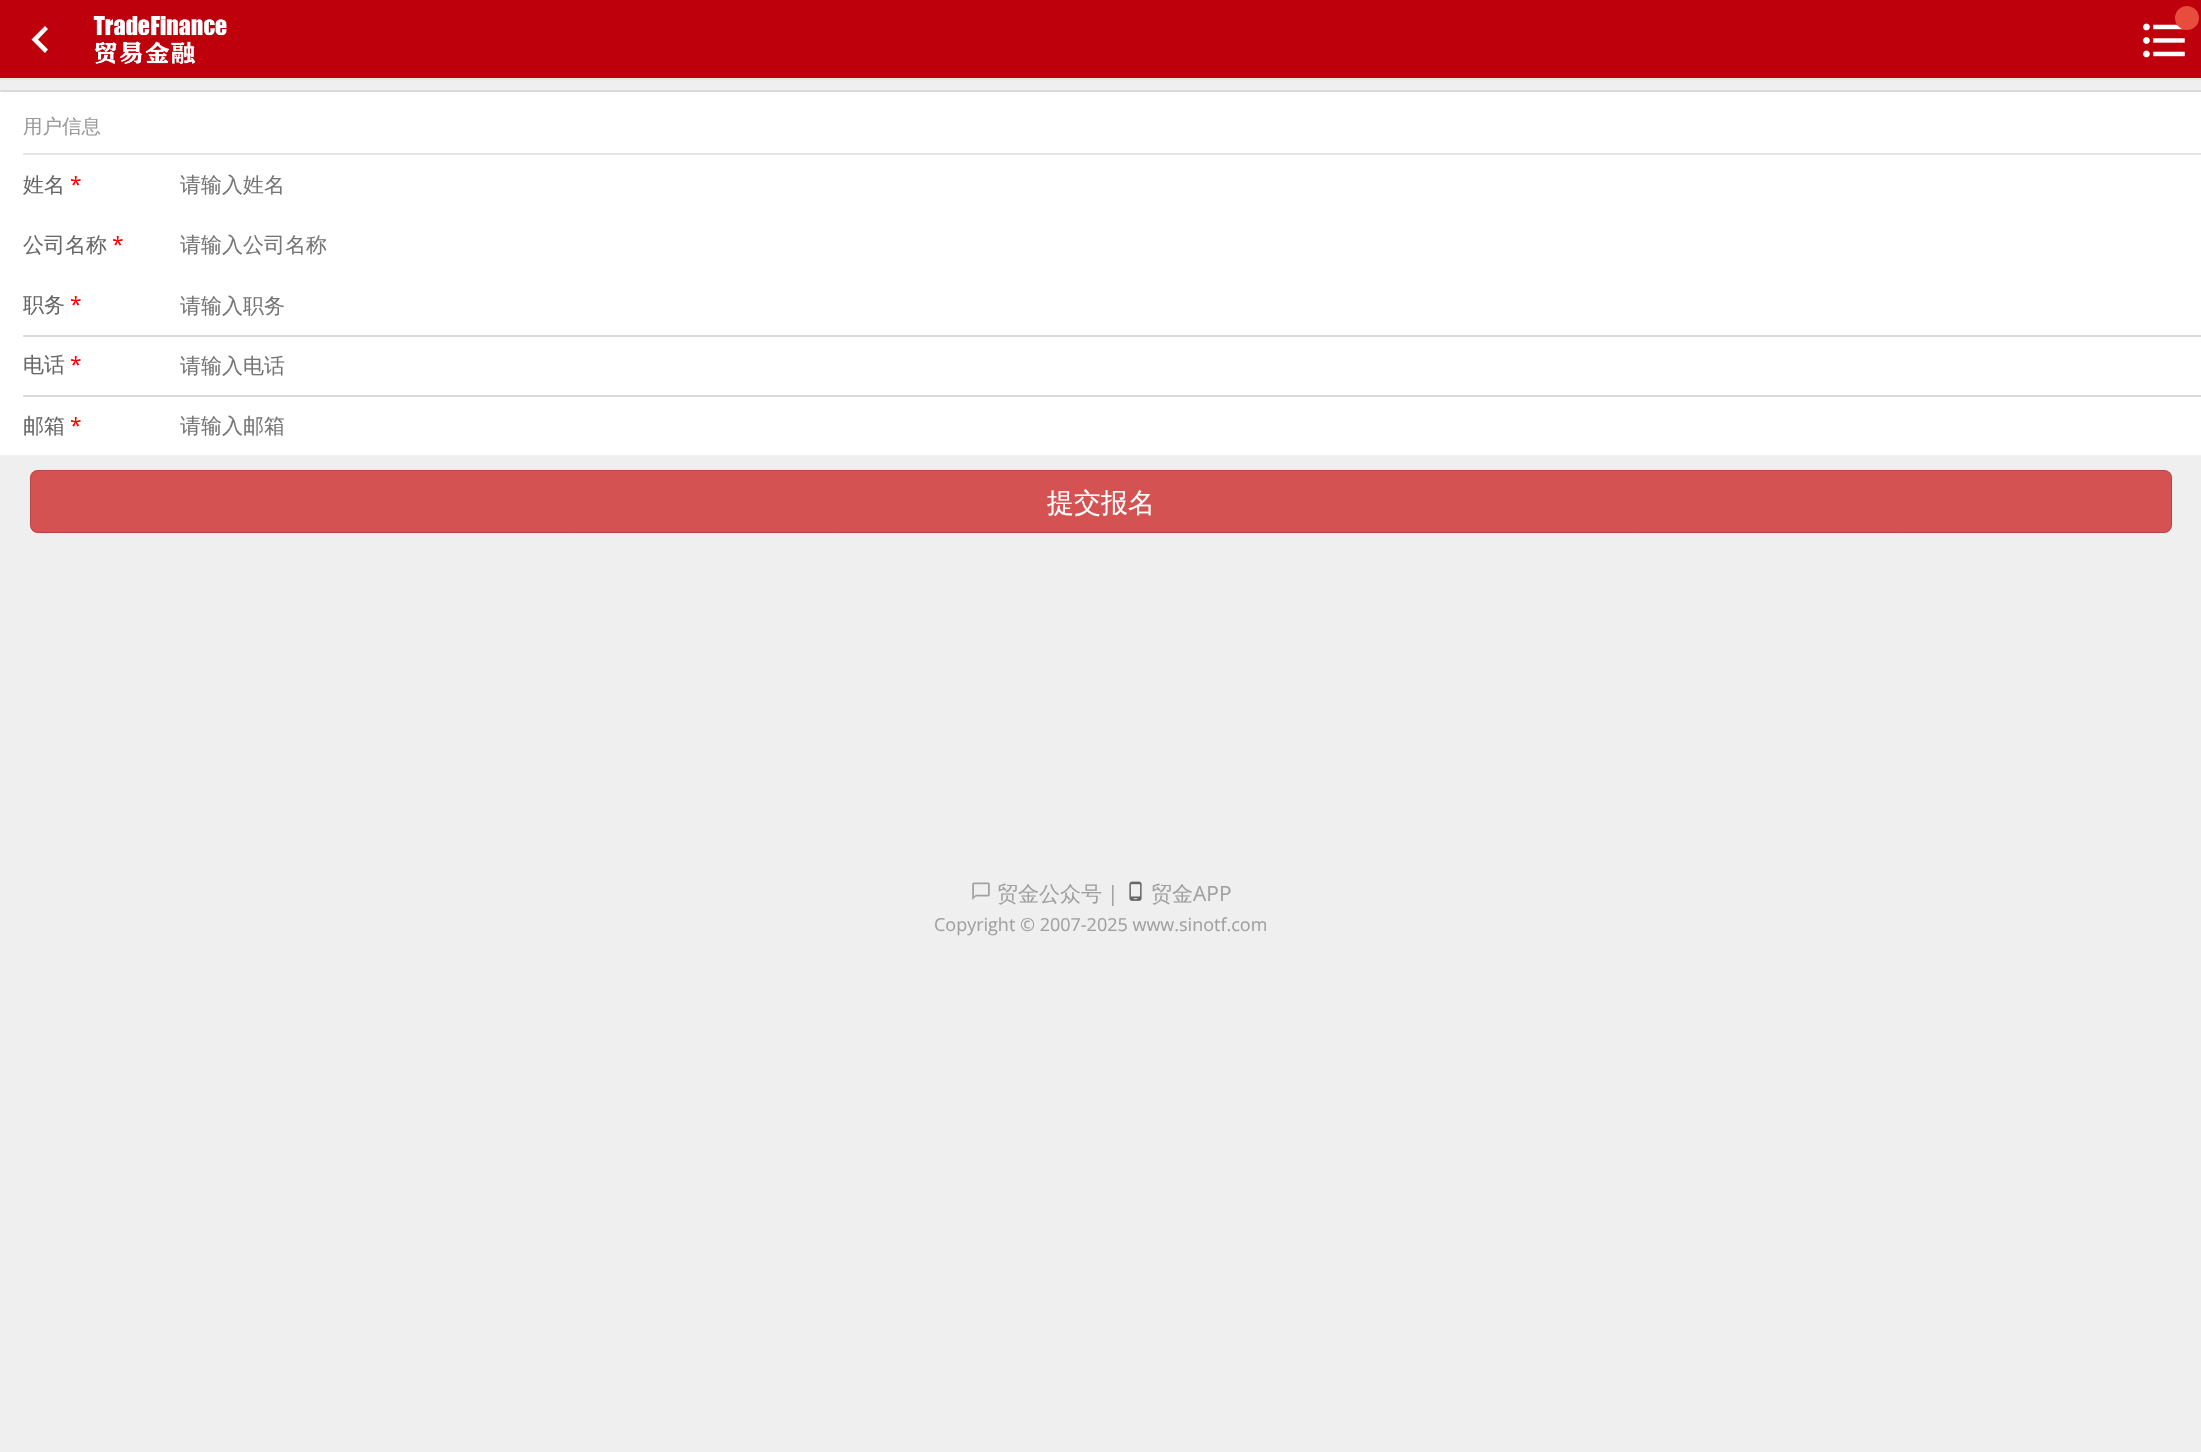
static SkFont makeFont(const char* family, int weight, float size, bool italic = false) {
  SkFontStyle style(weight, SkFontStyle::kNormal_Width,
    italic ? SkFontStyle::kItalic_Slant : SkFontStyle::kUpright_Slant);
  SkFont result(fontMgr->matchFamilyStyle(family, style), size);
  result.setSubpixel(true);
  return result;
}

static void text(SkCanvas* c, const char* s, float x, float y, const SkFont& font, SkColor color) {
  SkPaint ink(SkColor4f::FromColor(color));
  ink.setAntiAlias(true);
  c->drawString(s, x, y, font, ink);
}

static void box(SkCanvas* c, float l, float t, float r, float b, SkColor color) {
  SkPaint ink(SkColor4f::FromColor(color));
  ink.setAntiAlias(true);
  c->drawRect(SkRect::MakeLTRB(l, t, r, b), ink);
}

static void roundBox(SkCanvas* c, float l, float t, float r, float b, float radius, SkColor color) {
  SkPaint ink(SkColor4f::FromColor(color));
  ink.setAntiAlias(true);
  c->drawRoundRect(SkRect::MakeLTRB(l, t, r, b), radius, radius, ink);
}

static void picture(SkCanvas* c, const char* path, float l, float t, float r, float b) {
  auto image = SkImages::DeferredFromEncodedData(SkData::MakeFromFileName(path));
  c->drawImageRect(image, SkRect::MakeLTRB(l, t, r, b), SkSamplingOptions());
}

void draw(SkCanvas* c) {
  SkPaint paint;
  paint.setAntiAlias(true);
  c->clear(0xffefefef);
  box(c, 0, 0, 2201, 78, 0xffbd000c);
  paint.setColor(0xffffffff);
  c->drawPath(SkPathBuilder().moveTo(48, 49.5f).lineTo(45, 53).lineTo(31.5f, 39.5f).lineTo(45, 26).lineTo(48, 29).lineTo(38, 39.5f).close().detach(), paint);
  picture(c, "img_01.png", 93, 16, 227, 65);
  picture(c, "img_02.png", 2143, 23, 2185, 58);
  paint.setColor(0xffe74c3c);
  c->drawCircle(2187, 18, 12, paint);
  roundBox(c, 0, 78, 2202, 80, 1, 0xffe5e5e5);
  box(c, 0, 90, 2201, 455, 0xffffffff);
  roundBox(c, 0, 90, 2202, 92, 1, 0xffd9d9d9);
  SkFont face1 = makeFont("WenQuanYi Zen Hei", 500, 19.5f);
  text(c, "用户信息", 23, 133, face1, 0xff999999);
  paint.setColor(0xffe5e5e5);
  c->drawPath(SkPathBuilder().moveTo(24, 153).lineTo(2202, 153).lineTo(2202, 155).lineTo(24, 155).cubicTo(23.5f, 155, 23, 154.5f, 23, 154).cubicTo(23, 153.5f, 23.5f, 153, 24, 153).close().detach(), paint);
  SkFont face2 = makeFont("WenQuanYi Zen Hei", 500, 21);
  text(c, "姓名", 23, 192, face2, 0xff666666);
  SkFont face3 = makeFont("Open Sans", 400, 21);
  text(c, "*", 70, 192, face3, 0xffff0000);
  text(c, "请输入姓名", 180, 192, face2, 0xff757575);
  text(c, "公司名称", 23, 252, face2, 0xff666666);
  text(c, "*", 112, 252, face3, 0xffff0000);
  text(c, "请输入公司名称", 180, 252, face2, 0xff757575);
  text(c, "职务", 23, 312, face2, 0xff666666);
  text(c, "*", 70, 312, face3, 0xffff0000);
  text(c, "请输入职务", 180, 313, face2, 0xff757575);
  paint.setColor(0xffd9d9d9);
  c->drawPath(SkPathBuilder().moveTo(24, 335).lineTo(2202, 335).lineTo(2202, 337).lineTo(24, 337).cubicTo(23.5f, 337, 23, 336.5f, 23, 336).cubicTo(23, 335.5f, 23.5f, 335, 24, 335).close().detach(), paint);
  text(c, "电话", 23, 372, face2, 0xff666666);
  text(c, "*", 70, 372, face3, 0xffff0000);
  text(c, "请输入电话", 180, 373, face2, 0xff757575);
  c->drawPath(SkPathBuilder().moveTo(24, 395).lineTo(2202, 395).lineTo(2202, 397).lineTo(24, 397).cubicTo(23.5f, 397, 23, 396.5f, 23, 396).cubicTo(23, 395.5f, 23.5f, 395, 24, 395).close().detach(), paint);
  text(c, "邮箱", 23, 433, face2, 0xff666666);
  text(c, "*", 70, 433, face3, 0xffff0000);
  text(c, "请输入邮箱", 180, 433, face2, 0xff757575);
  roundBox(c, 30, 470, 2172, 533, 8, 0xffd55252);
  paint.setStyle(SkPaint::kStroke_Style);
  paint.setStrokeWidth(0.8f);
  paint.setColor(0x33000000);
  c->drawRoundRect(SkRect::MakeLTRB(30.4f, 470.4f, 2171.6f, 532.6f), 7.6f, 7.6f, paint);
  SkFont face4 = makeFont("WenQuanYi Zen Hei", 500, 27);
  text(c, "提交报名", 1047, 512, face4, 0xffffffff);
  picture(c, "img_03.png", 972, 882, 990, 900);
  text(c, "贸金公众号", 997, 901, face2, 0xffa0a0a0);
  text(c, "|", 1107, 901, face3, 0xffa0a0a0);
  picture(c, "img_04.png", 1129, 881, 1142, 901);
  text(c, "贸金", 1151, 901, face2, 0xffa0a0a0);
  text(c, "APP", 1193, 901, face3, 0xffa0a0a0);
  SkFont face5 = makeFont("Open Sans", 400, 18);
  text(c, "Copyright © 2007-2025 www.sinotf.com", 934, 931, face5, 0xffa0a0a0);
}
